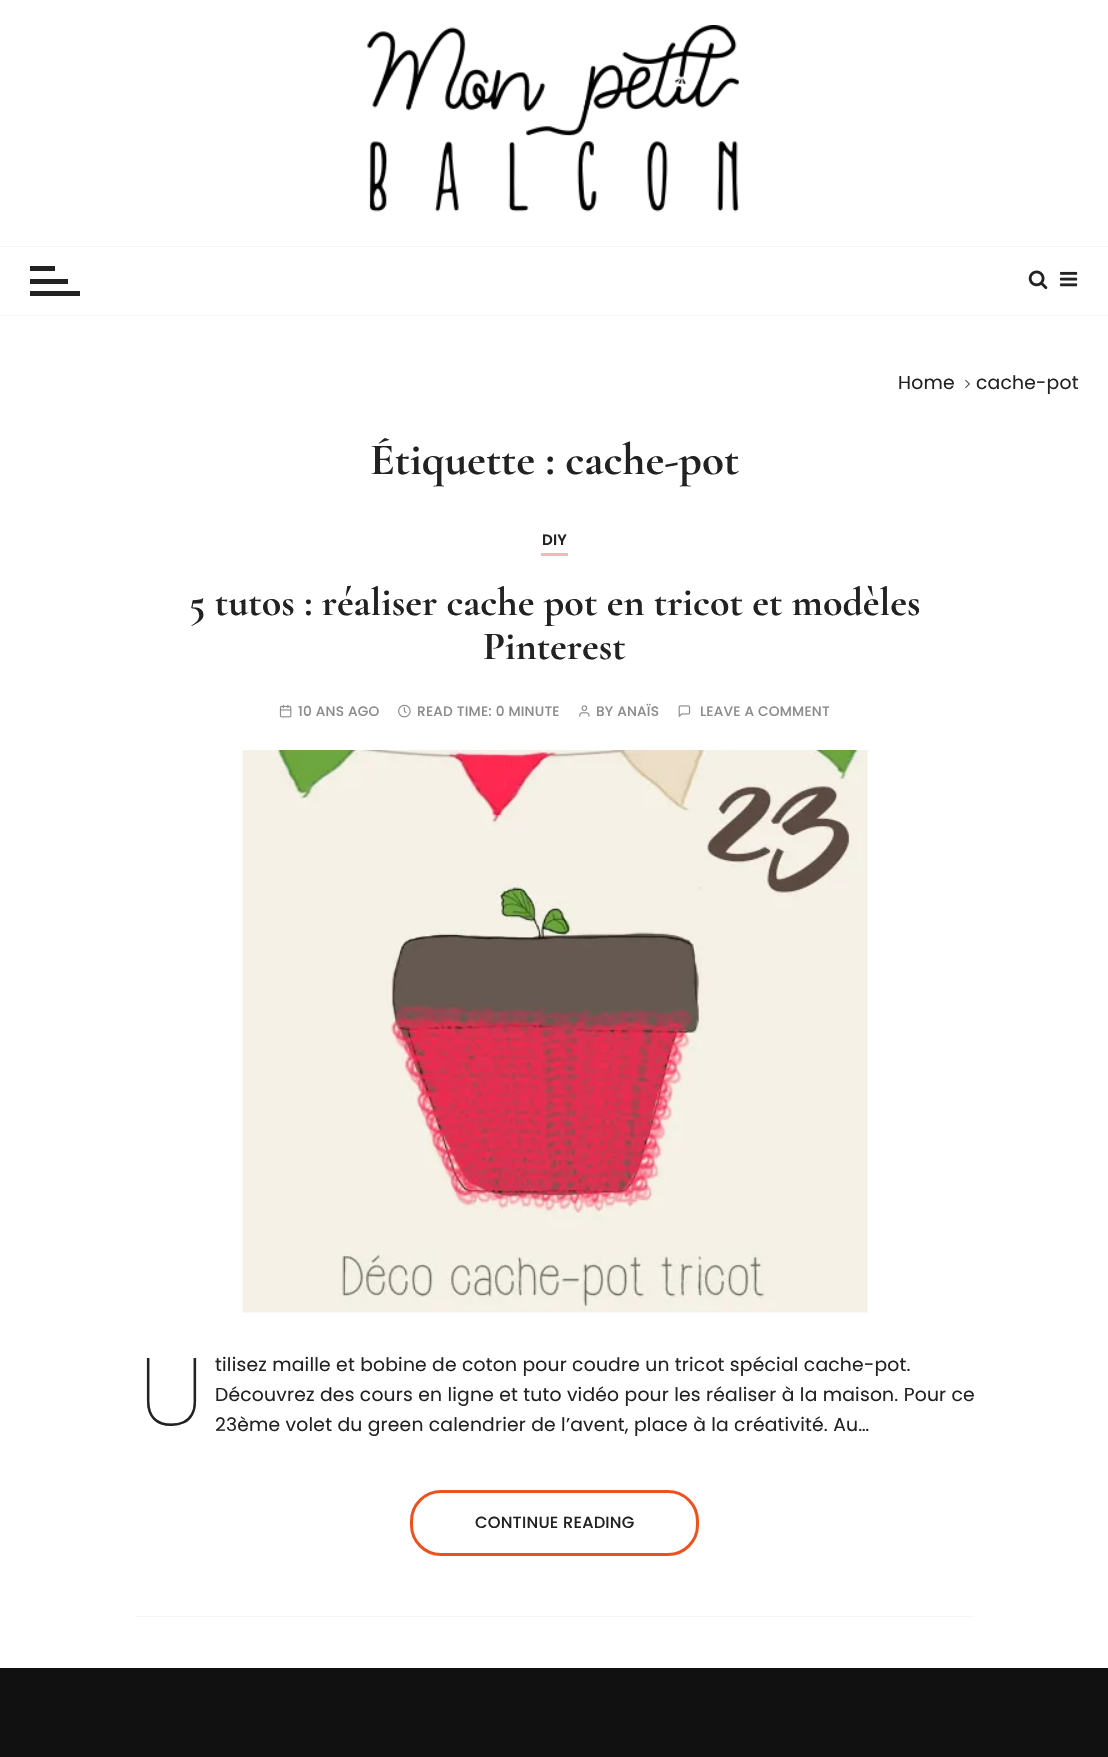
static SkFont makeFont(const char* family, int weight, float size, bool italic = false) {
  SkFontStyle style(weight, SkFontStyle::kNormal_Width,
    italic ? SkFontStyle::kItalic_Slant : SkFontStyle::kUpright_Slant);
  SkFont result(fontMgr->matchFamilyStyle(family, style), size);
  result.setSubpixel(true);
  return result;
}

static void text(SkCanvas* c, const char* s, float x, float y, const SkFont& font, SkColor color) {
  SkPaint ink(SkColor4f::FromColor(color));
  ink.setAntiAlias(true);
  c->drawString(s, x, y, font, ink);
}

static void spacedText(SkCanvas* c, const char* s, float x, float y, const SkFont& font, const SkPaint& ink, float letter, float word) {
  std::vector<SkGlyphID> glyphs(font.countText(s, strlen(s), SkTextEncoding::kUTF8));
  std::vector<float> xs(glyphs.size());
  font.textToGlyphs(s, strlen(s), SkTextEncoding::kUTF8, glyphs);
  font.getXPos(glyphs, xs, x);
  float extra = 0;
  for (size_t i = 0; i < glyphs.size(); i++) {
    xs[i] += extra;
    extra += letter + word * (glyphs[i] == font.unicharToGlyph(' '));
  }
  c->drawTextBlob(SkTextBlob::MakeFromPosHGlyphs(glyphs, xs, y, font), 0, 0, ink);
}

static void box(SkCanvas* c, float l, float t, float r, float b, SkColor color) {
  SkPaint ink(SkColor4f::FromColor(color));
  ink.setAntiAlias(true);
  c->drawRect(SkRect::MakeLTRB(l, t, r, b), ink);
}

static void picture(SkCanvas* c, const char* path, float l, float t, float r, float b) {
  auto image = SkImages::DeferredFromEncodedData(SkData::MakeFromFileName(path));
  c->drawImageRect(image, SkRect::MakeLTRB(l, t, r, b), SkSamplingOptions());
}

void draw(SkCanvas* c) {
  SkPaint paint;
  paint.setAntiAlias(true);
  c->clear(0xffffffff);
  picture(c, "img_01.png", 367, 25, 740, 212);
  box(c, 0, 246, 1108, 247, 0xfff5f5f5);
  box(c, 0, 315, 1108, 316, 0xfff5f5f5);
  box(c, 30, 266, 55, 271, 0xff222222);
  box(c, 30, 279, 68, 284, 0xff222222);
  box(c, 30, 291, 80, 296, 0xff222222);
  picture(c, "img_02.png", 1028, 270, 1048, 290);
  picture(c, "img_03.png", 1060, 271, 1078, 287);
  SkFont face1 = makeFont("Poppins", 400, 18.75f);
  paint.setColor(0xff222222);
  spacedText(c, "Home", 898, 389, face1, paint, 0.2f, 0);
  picture(c, "img_04.png", 965, 379, 970, 388);
  spacedText(c, "cache-pot", 976, 389, face1, paint, 0.2f, 0);
  SkFont face2 = makeFont("Cormorant Garamond", 700, 45);
  text(c, "Étiquette : cache-pot", 370, 474, face2, 0xff222222);
  box(c, 135, 1616, 974, 1617, 0xfff5f5f5);
  SkFont face3 = makeFont("Poppins", 600, 15);
  spacedText(c, "DIY", 542, 545, face3, paint, 0.2f, 0);
  box(c, 541, 553, 568, 556, 0xfff3b9b9);
  SkFont face4 = makeFont("Cormorant Garamond", 700, 40);
  text(c, "5 tutos : réaliser cache pot en tricot et modèles", 189, 615, face4, 0xff222222);
  text(c, "Pinterest", 483, 659, face4, 0xff222222);
  picture(c, "img_05.png", 279, 704, 292, 718);
  SkFont face5 = makeFont("Poppins", 500, 13.75f);
  paint.setColor(0xff8c8b8b);
  spacedText(c, "10 ANS AGO", 298, 716, face5, paint, 0.2f, 0);
  picture(c, "img_06.png", 398, 704, 411, 718);
  spacedText(c, "READ TIME: 0 MINUTE", 417, 716, face5, paint, 0.2f, 0);
  picture(c, "img_07.png", 579, 705, 590, 717);
  spacedText(c, "BY ANAÏS", 596, 716, face5, paint, 0.2f, 0);
  picture(c, "img_08.png", 678, 705, 691, 717);
  spacedText(c, "LEAVE A COMMENT", 700, 716, face5, paint, 0.2f, 0);
  picture(c, "img_09.png", 242, 750, 868, 1313);
  SkFont face6 = makeFont("Noto Sans", 100, 94);
  paint.setColor(0xff222222);
  spacedText(c, "U", 138, 1425, face6, paint, 0.2f, 0);
  spacedText(c, "tilisez maille et bobine de coton pour coudre un tricot spécial cache-pot.", 215, 1371, face1, paint, 0.2f, 0);
  spacedText(c, "Découvrez des cours en ligne et tuto vidéo pour les réaliser à la maison. Pour ce", 215, 1401, face1, paint, 0.2f, 0);
  spacedText(c, "23ème volet du green calendrier de l’avent, place à la créativité. Au…", 215, 1431, face1, paint, 0.2f, 0);
  paint.setStyle(SkPaint::kStroke_Style);
  paint.setStrokeWidth(3);
  paint.setColor(0xffec521e);
  c->drawRoundRect(SkRect::MakeLTRB(411.5f, 1491.5f, 697.5f, 1554.5f), 29.5f, 29.5f, paint);
  SkFont face7 = makeFont("Poppins", 500, 16.25f);
  paint.setStyle(SkPaint::kFill_Style);
  paint.setColor(0xff222222);
  spacedText(c, "CONTINUE READING", 475, 1528, face7, paint, 0.2f, 0);
  box(c, 0, 1668, 1108, 1757, 0xff111111);
}
